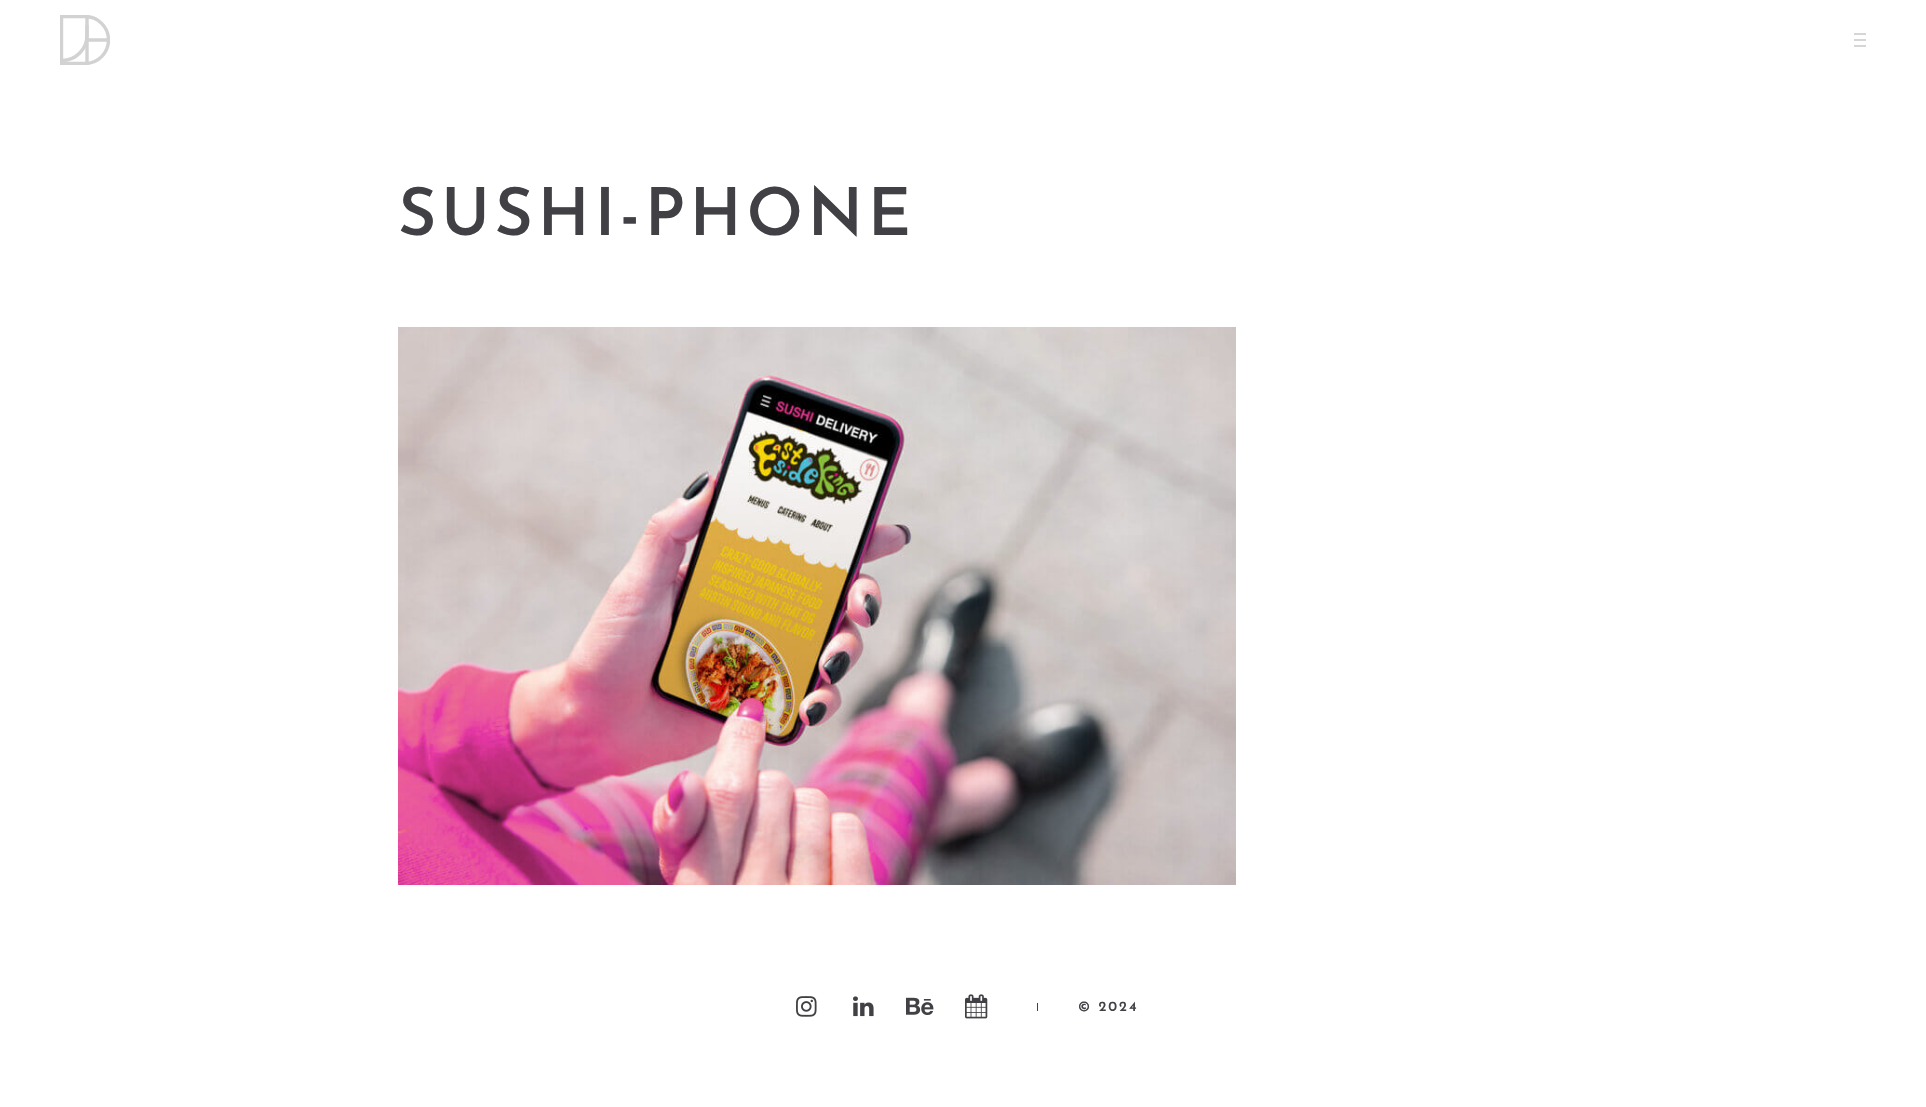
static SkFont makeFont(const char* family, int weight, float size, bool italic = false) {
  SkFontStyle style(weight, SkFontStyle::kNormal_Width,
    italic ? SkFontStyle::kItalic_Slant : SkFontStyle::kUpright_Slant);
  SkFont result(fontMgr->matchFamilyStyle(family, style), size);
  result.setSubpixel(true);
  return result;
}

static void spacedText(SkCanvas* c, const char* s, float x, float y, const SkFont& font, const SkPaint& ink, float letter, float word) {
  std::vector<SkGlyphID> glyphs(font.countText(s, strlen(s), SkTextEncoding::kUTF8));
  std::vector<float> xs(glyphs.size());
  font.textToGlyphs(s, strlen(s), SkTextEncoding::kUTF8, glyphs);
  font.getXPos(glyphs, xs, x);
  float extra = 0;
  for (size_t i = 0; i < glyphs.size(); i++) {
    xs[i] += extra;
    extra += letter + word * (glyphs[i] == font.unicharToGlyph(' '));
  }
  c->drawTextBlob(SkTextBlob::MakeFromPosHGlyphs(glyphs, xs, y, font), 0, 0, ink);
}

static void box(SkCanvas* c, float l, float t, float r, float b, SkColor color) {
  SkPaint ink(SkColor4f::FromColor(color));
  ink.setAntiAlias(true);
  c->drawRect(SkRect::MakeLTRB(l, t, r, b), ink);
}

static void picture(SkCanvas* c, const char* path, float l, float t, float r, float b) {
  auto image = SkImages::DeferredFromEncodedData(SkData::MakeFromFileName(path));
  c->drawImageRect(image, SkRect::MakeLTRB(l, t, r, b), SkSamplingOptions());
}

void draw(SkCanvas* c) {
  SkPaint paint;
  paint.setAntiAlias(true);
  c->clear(0xffffffff);
  paint.setStyle(SkPaint::kStroke_Style);
  paint.setStrokeWidth(3.4f);
  paint.setColor(0xffd3d2d2);
  c->drawPath(SkPathBuilder().moveTo(87, 25).lineTo(87, 35.5f).cubicTo(87, 49, 76, 60.5f, 62, 60.5f).detach(), paint);
  c->save();
  c->clipRect(SkRect::MakeLTRB(60, 15, 110, 65));
  c->drawPath(SkPathBuilder().moveTo(61.5f, 16.5f).lineTo(85, 16.5f).cubicTo(98, 16.5f, 108.5f, 27, 108.5f, 40).cubicTo(108.5f, 53, 98, 63.5f, 85, 63.5f).lineTo(61.5f, 63.5f).close().detach(), paint);
  c->restore();
  c->drawPath(SkPathBuilder().moveTo(87, 63.5f).lineTo(87, 16.5f).moveTo(108.5f, 40).lineTo(87, 40).detach(), paint);
  box(c, 1854, 33, 1866, 35, 0xffd6d6d6);
  box(c, 1854, 39, 1866, 41, 0xffd6d6d6);
  box(c, 1854, 45, 1866, 47, 0xffd6d6d6);
  SkFont face1 = makeFont("Josefin Sans", 600, 66);
  paint.setStyle(SkPaint::kFill_Style);
  paint.setColor(0xff414145);
  spacedText(c, "SUSHI-PHONE", 398, 235, face1, paint, 4.6f, 0);
  picture(c, "img_01.png", 398, 327, 1236, 885);
  picture(c, "img_02.png", 796, 996, 817, 1017);
  picture(c, "img_03.png", 853, 996, 874, 1017);
  picture(c, "img_04.png", 906, 997, 934, 1015);
  picture(c, "img_05.png", 965, 994, 988, 1019);
  box(c, 1037, 1003, 1038, 1011, 0xff414145);
  SkFont face2 = makeFont("Josefin Sans", 600, 14);
  spacedText(c, "© 2024", 1078, 1011, face2, paint, 2, 0);
}
